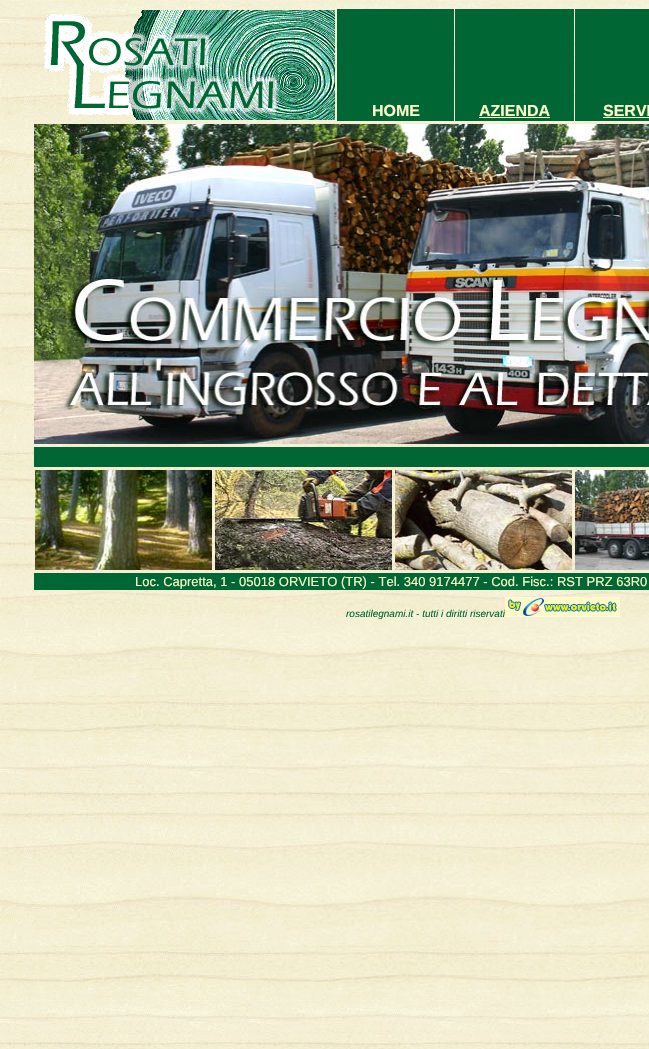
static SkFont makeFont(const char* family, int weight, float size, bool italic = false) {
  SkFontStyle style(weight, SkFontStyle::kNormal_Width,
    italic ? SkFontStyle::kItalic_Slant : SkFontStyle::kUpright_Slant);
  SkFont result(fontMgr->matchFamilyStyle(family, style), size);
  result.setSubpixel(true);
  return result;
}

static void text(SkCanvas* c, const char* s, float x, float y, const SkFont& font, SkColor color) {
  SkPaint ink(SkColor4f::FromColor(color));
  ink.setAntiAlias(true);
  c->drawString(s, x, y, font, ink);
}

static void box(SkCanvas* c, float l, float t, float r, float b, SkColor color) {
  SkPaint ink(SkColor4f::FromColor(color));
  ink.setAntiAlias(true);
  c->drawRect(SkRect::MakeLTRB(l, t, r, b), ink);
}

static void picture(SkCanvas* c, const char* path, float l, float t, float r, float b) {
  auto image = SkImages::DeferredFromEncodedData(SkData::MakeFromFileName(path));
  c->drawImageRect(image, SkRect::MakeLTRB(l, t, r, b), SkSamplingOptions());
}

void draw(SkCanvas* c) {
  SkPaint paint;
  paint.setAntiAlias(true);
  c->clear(0xffffffff);
  picture(c, "img_01.png", 0, 0, 649, 1049);
  picture(c, "img_02.png", 44, 10, 335, 120);
  box(c, 337, 9, 454, 121, 0xff006633);
  SkFont face1 = makeFont("Liberation Sans", 700, 16);
  text(c, "HOME", 372, 116, face1, 0xffffffcc);
  box(c, 455, 9, 574, 121, 0xff006633);
  text(c, "AZIENDA", 479, 116, face1, 0xffffffcc);
  box(c, 479, 117, 550, 118, 0xffffffcc);
  box(c, 575, 9, 649, 121, 0xff006633);
  text(c, "SERVI", 603, 116, face1, 0xffffffcc);
  box(c, 603, 117, 649, 118, 0xffffffcc);
  picture(c, "img_03.png", 34, 124, 649, 444);
  box(c, 34, 447, 649, 467, 0xff006633);
  picture(c, "img_04.png", 35, 470, 212, 570);
  picture(c, "img_05.png", 215, 470, 392, 570);
  picture(c, "img_06.png", 395, 470, 572, 570);
  picture(c, "img_07.png", 575, 470, 649, 570);
  box(c, 34, 573, 649, 590, 0xff006633);
  SkFont face2 = makeFont("Liberation Sans", 400, 13);
  text(c, "Loc. Capretta, 1 - 05018 ORVIETO (TR) - Tel. 340 9174477 - Cod. Fisc.: RST PRZ 63R0", 135, 586, face2, 0xffffffcc);
  SkFont face3 = makeFont("Liberation Sans", 400, 10, true);
  text(c, "rosatilegnami.it - tutti i diritti riservati", 346, 617, face3, 0xff006633);
  picture(c, "img_08.png", 505, 597, 620, 617);
}
